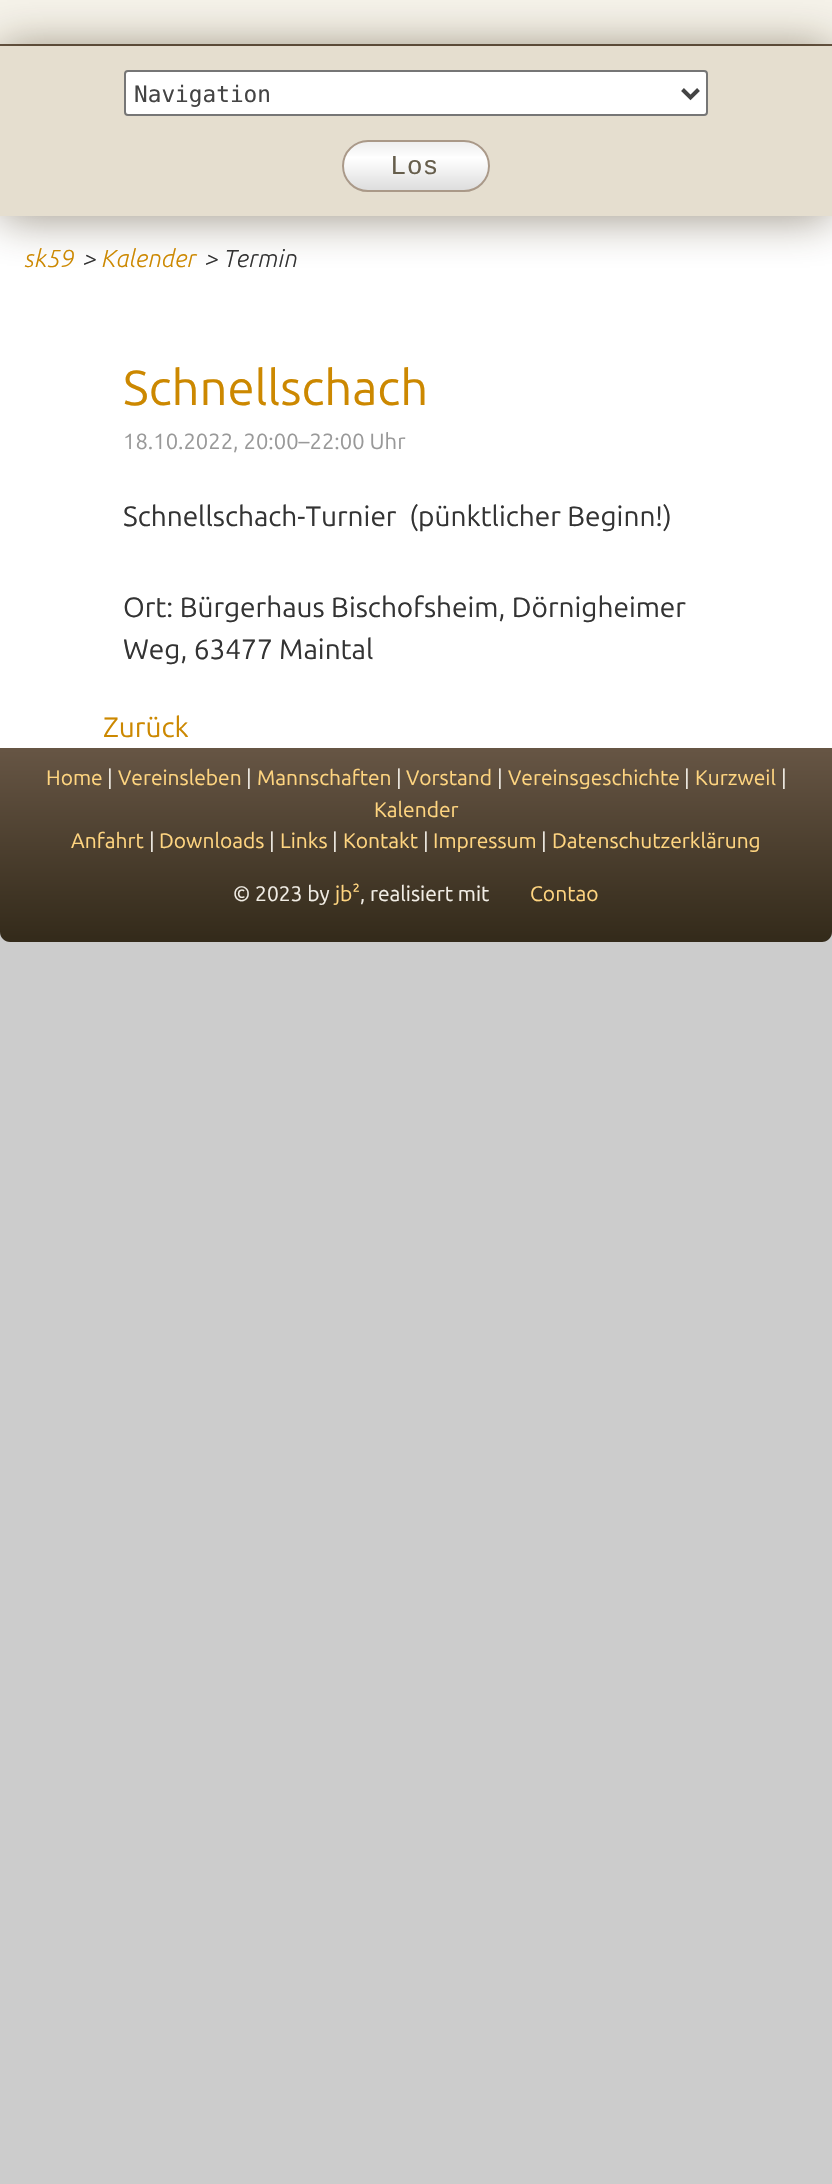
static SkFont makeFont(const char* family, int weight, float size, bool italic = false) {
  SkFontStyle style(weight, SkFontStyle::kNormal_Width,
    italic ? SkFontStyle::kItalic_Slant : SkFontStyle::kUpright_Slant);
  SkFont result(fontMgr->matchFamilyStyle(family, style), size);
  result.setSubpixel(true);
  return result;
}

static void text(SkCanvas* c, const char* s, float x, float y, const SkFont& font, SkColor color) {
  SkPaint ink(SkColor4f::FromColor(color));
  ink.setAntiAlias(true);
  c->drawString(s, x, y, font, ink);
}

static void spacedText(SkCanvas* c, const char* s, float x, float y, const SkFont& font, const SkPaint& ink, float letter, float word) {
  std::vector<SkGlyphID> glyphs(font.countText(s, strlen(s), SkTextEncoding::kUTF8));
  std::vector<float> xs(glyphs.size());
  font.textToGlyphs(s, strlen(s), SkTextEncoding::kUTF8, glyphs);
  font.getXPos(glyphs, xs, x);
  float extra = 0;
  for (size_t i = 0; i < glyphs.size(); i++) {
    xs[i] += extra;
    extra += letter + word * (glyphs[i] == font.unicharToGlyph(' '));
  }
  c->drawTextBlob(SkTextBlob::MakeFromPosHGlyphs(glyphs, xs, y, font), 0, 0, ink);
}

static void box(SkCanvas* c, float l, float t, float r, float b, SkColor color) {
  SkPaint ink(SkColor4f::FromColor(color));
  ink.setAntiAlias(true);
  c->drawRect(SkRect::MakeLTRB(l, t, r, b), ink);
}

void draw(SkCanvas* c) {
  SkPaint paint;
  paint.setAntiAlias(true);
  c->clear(0xffcccccc);
  box(c, 0, 0, 832, 44, 0xfff5f2e9);
  box(c, 0, 44, 832, 46, 0xff665544);
  box(c, 0, 216, 832, 748, 0xffffffff);
  paint.setColor(0x8036260a);
  paint.setMaskFilter(SkMaskFilter::MakeBlur(kNormal_SkBlurStyle, 22));
  c->drawRect(SkRect::MakeLTRB(0, 48, 832, 218), paint);
  paint.setMaskFilter(nullptr);
  box(c, 0, 46, 832, 216, 0xffe5decf);
  paint.setColor(0xffffffff);
  c->drawRoundRect(SkRect::MakeLTRB(125, 71, 707, 115), 3, 3, paint);
  paint.setStyle(SkPaint::kStroke_Style);
  paint.setStrokeWidth(2);
  paint.setColor(0xff767676);
  c->drawRoundRect(SkRect::MakeLTRB(125, 71, 707, 115), 3, 3, paint);
  paint.setStrokeWidth(4);
  paint.setColor(0xff444444);
  c->drawPath(SkPathBuilder().moveTo(682.5f, 89.5f).lineTo(690.5f, 97.5f).lineTo(698.5f, 89.5f).detach(), paint);
  SkFont face1 = makeFont("DejaVu Sans Mono", 400, 22.75f);
  text(c, "Navigation", 134, 102, face1, 0xff444444);
  c->save();
  c->clipPath(SkPathBuilder().moveTo(368, 140).lineTo(464, 140).cubicTo(478.5f, 140, 490, 151.5f, 490, 166).cubicTo(490, 180.5f, 478.5f, 192, 464, 192).lineTo(368, 192).cubicTo(353.5f, 192, 342, 180.5f, 342, 166).cubicTo(342, 151.5f, 353.5f, 140, 368, 140).close().detach(), true);
  paint.setStyle(SkPaint::kFill_Style);
  {
    const SkColor colors[] = {0xffeeeeee, 0xffffffff, 0xffeeeeee, 0xffdddddd};
    const float stops[] = {0, 0.33f, 0.67f, 1};
    const SkPoint ends[] = {{416, 142}, {416, 190}};
    paint.setShader(SkGradientShader::MakeLinear(ends, colors, stops, 4, SkTileMode::kClamp));
    paint.setAlpha(255);
  }
  c->drawRect(SkRect::MakeLTRB(342, 142, 490, 190), paint);
  c->restore();
  paint.setStyle(SkPaint::kStroke_Style);
  paint.setStrokeWidth(2);
  paint.setShader(nullptr);
  paint.setColor(0xffaa9988);
  c->drawRoundRect(SkRect::MakeLTRB(343, 141, 489, 191), 25, 25, paint);
  SkFont face2 = makeFont("Liberation Sans", 400, 26);
  paint.setStyle(SkPaint::kFill_Style);
  paint.setColor(0xff665e4c);
  spacedText(c, "Los", 391, 174, face2, paint, 2, 0);
  SkFont face3 = makeFont("Ubuntu", 300, 24.5f, true);
  text(c, "sk59", 25, 267, face3, 0xffcc8800);
  text(c, ">", 83, 267, face3, 0xff333333);
  text(c, "Kalender", 102, 267, face3, 0xffcc8800);
  text(c, ">", 205, 267, face3, 0xff333333);
  text(c, "Termin", 224, 267, face3, 0xff333333);
  SkFont face4 = makeFont("Ubuntu", 400, 49);
  text(c, "Schnellschach", 123, 405, face4, 0xffcc8800);
  SkFont face5 = makeFont("Ubuntu", 400, 22);
  text(c, "18.10.2022, 20:00–22:00 Uhr", 123, 449, face5, 0xff999999);
  SkFont face6 = makeFont("Ubuntu", 400, 28);
  text(c, "Schnellschach-Turnier  (pünktlicher Beginn!)", 123, 526, face6, 0xff333333);
  text(c, "Ort: Bürgerhaus Bischofsheim, Dörnigheimer", 123, 617, face6, 0xff333333);
  text(c, "Weg, 63477 Maintal", 123, 659, face6, 0xff333333);
  text(c, "Zurück", 103, 737, face6, 0xffcc8800);
  {
    const SkColor colors[] = {0xff665544, 0xff332a1a};
    const float stops[] = {0, 1};
    const SkPoint ends[] = {{416, 750}, {416, 942}};
    paint.setShader(SkGradientShader::MakeLinear(ends, colors, stops, 2, SkTileMode::kClamp));
    paint.setAlpha(255);
  }
  c->drawPath(SkPathBuilder().moveTo(0, 750).lineTo(832, 750).lineTo(832, 932).cubicTo(832, 937.5f, 827.5f, 942, 822, 942).lineTo(10, 942).cubicTo(4.5f, 942, 0, 937.5f, 0, 932).close().detach(), paint);
  box(c, 0, 748, 832, 750, 0xff665544);
  SkFont face7 = makeFont("Ubuntu", 400, 21);
  text(c, "Home", 46, 785, face7, 0xffffd580);
  text(c, "|", 107, 785, face7, 0xfff2eee6);
  text(c, "Vereinsleben", 118, 785, face7, 0xffffd580);
  text(c, "|", 246, 785, face7, 0xfff2eee6);
  text(c, "Mannschaften", 257, 785, face7, 0xffffd580);
  text(c, "|", 396, 785, face7, 0xfff2eee6);
  text(c, "Vorstand", 406, 785, face7, 0xffffd580);
  text(c, "|", 497, 785, face7, 0xfff2eee6);
  text(c, "Vereinsgeschichte", 508, 785, face7, 0xffffd580);
  text(c, "|", 684, 785, face7, 0xfff2eee6);
  text(c, "Kurzweil", 695, 785, face7, 0xffffd580);
  text(c, "|", 781, 785, face7, 0xfff2eee6);
  text(c, "Kalender", 374, 817, face7, 0xffffd580);
  text(c, "Anfahrt", 71, 848, face7, 0xffffd580);
  text(c, "|", 149, 848, face7, 0xfff2eee6);
  text(c, "Downloads", 159, 848, face7, 0xffffd580);
  text(c, "|", 269, 848, face7, 0xfff2eee6);
  text(c, "Links", 280, 848, face7, 0xffffd580);
  text(c, "|", 332, 848, face7, 0xfff2eee6);
  text(c, "Kontakt", 343, 848, face7, 0xffffd580);
  text(c, "|", 423, 848, face7, 0xfff2eee6);
  text(c, "Impressum", 433, 848, face7, 0xffffd580);
  text(c, "|", 541, 848, face7, 0xfff2eee6);
  text(c, "Datenschutzerklärung", 552, 848, face7, 0xffffd580);
  text(c, "© 2023 by", 233, 901, face7, 0xfff2eee6);
  text(c, "jb²", 335, 901, face7, 0xffffd580);
  text(c, ", realisiert mit", 360, 901, face7, 0xfff2eee6);
  text(c, "Contao", 530, 901, face7, 0xffffd580);
}
